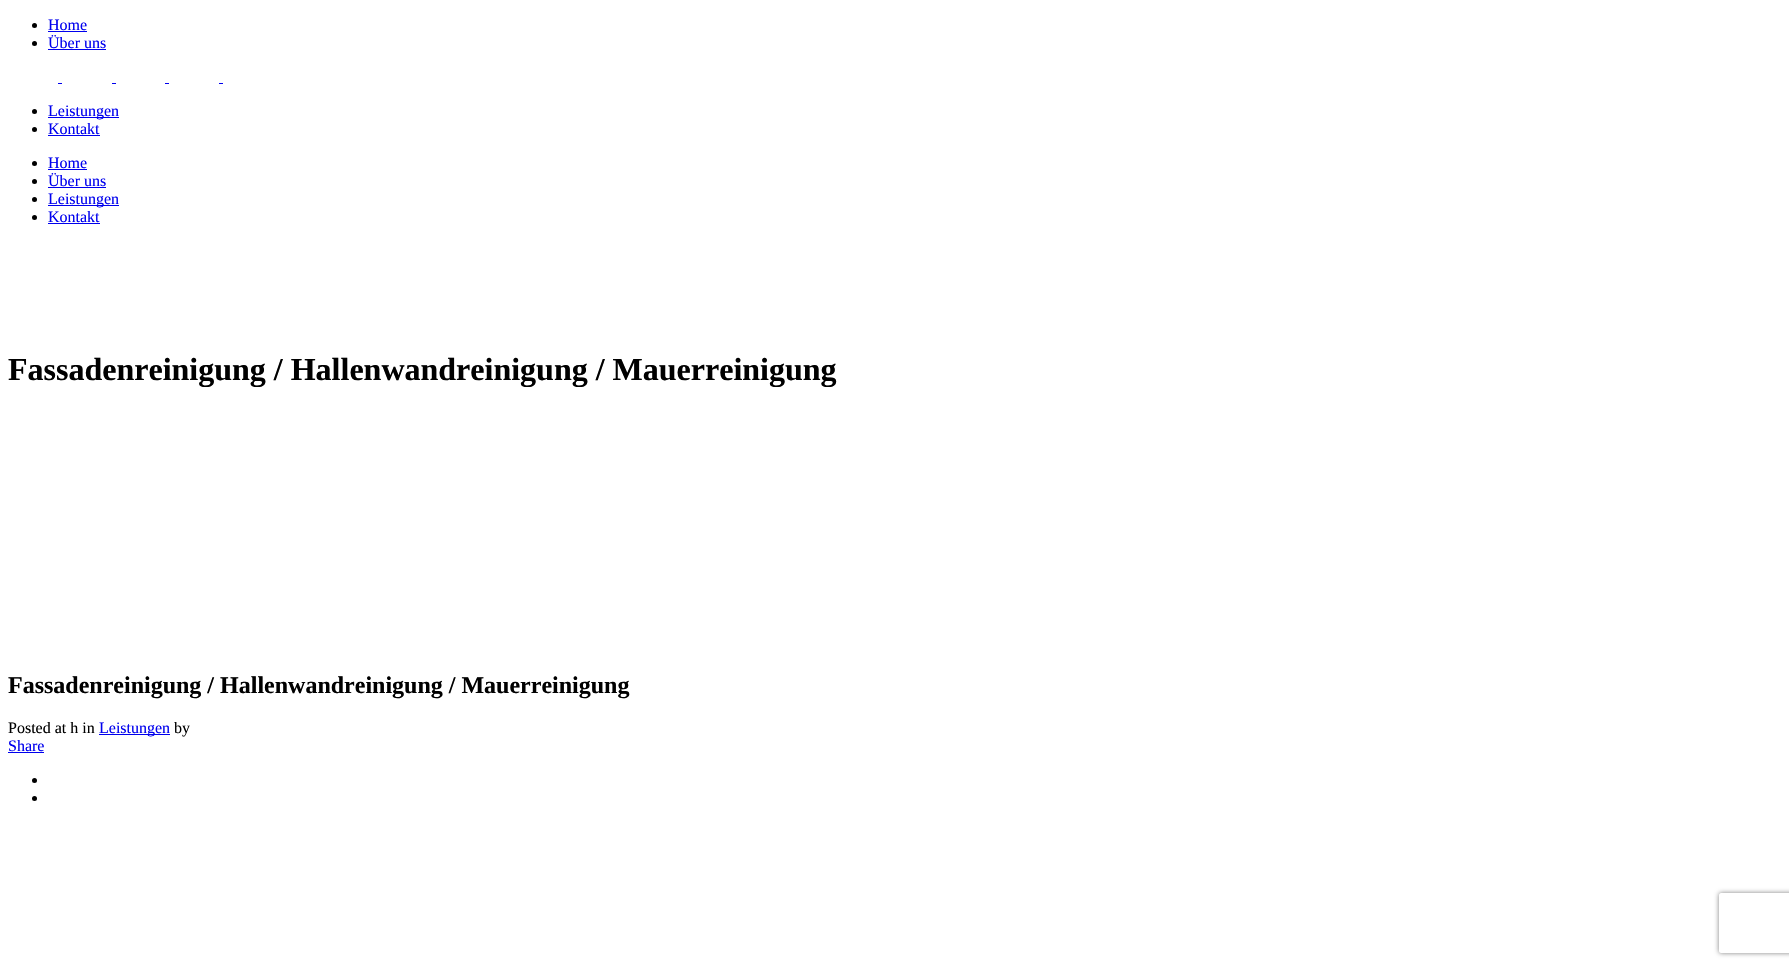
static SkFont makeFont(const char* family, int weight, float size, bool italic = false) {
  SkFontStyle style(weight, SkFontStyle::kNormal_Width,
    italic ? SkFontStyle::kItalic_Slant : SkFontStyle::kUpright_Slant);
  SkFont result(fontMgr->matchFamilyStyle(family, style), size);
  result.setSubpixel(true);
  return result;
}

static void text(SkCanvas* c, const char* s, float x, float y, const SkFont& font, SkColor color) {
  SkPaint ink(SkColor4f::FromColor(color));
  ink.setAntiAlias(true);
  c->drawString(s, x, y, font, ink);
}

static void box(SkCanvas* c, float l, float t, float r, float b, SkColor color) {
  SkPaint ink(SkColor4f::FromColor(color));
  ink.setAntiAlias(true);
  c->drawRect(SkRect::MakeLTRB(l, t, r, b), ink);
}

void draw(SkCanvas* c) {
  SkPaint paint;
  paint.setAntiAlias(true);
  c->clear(0xffffffff);
  paint.setColor(0xff000000);
  c->drawCircle(34.5f, 25.5f, 2.5f, paint);
  SkFont face1 = makeFont("Liberation Serif", 400, 16);
  text(c, "Home", 48, 30, face1, 0xff0000ee);
  box(c, 48, 31, 87, 32, 0xff0000ee);
  c->drawCircle(34.5f, 43.5f, 2.5f, paint);
  text(c, "Über uns", 48, 48, face1, 0xff0000ee);
  box(c, 48, 49, 106, 50, 0xff0000ee);
  box(c, 58, 83, 62, 84, 0xff0000ee);
  box(c, 112, 83, 116, 84, 0xff0000ee);
  box(c, 165, 83, 169, 84, 0xff0000ee);
  box(c, 219, 83, 223, 84, 0xff0000ee);
  c->drawCircle(34.5f, 111.5f, 2.5f, paint);
  box(c, 48, 117, 119, 118, 0xff0000ee);
  text(c, "Leistungen", 48, 116, face1, 0xff0000ee);
  c->drawCircle(34.5f, 129.5f, 2.5f, paint);
  text(c, "Kontakt", 48, 134, face1, 0xff0000ee);
  box(c, 48, 135, 100, 136, 0xff0000ee);
  c->drawCircle(34.5f, 163.5f, 2.5f, paint);
  text(c, "Home", 48, 168, face1, 0xff0000ee);
  box(c, 48, 169, 87, 170, 0xff0000ee);
  c->drawCircle(34.5f, 181.5f, 2.5f, paint);
  text(c, "Über uns", 48, 186, face1, 0xff0000ee);
  box(c, 48, 187, 106, 188, 0xff0000ee);
  c->drawCircle(34.5f, 199.5f, 2.5f, paint);
  box(c, 48, 205, 119, 206, 0xff0000ee);
  text(c, "Leistungen", 48, 204, face1, 0xff0000ee);
  c->drawCircle(34.5f, 217.5f, 2.5f, paint);
  text(c, "Kontakt", 48, 222, face1, 0xff0000ee);
  box(c, 48, 223, 100, 224, 0xff0000ee);
  SkFont face2 = makeFont("Liberation Serif", 700, 32);
  text(c, "Fassadenreinigung / Hallenwandreinigung / Mauerreinigung", 8, 380, face2, 0xff000000);
  SkFont face3 = makeFont("Liberation Serif", 700, 24);
  text(c, "Fassadenreinigung / Hallenwandreinigung / Mauerreinigung", 8, 693, face3, 0xff000000);
  text(c, "Posted at h in", 8, 733, face1, 0xff000000);
  box(c, 99, 734, 170, 735, 0xff0000ee);
  text(c, "Leistungen", 99, 733, face1, 0xff0000ee);
  text(c, "by", 174, 733, face1, 0xff000000);
  text(c, "Share", 8, 751, face1, 0xff0000ee);
  box(c, 8, 752, 44, 753, 0xff0000ee);
  c->drawCircle(34.5f, 780.5f, 2.5f, paint);
  c->drawCircle(34.5f, 798.5f, 2.5f, paint);
  c->save();
  c->clipPath(SkPathBuilder(SkPathFillType::kEvenOdd).moveTo(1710, 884).lineTo(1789, 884).lineTo(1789, 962).lineTo(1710, 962).close().moveTo(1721, 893).lineTo(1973, 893).cubicTo(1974, 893, 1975, 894, 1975, 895).lineTo(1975, 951).cubicTo(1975, 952, 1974, 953, 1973, 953).lineTo(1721, 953).cubicTo(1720, 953, 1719, 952, 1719, 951).lineTo(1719, 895).cubicTo(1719, 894, 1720, 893, 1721, 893).close().detach(), true);
  paint.setColor(0xff808080);
  paint.setMaskFilter(SkMaskFilter::MakeBlur(kNormal_SkBlurStyle, 2.5f));
  c->drawRoundRect(SkRect::MakeLTRB(1719, 893, 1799, 953), 2, 2, paint);
  paint.setMaskFilter(nullptr);
  c->restore();
}
